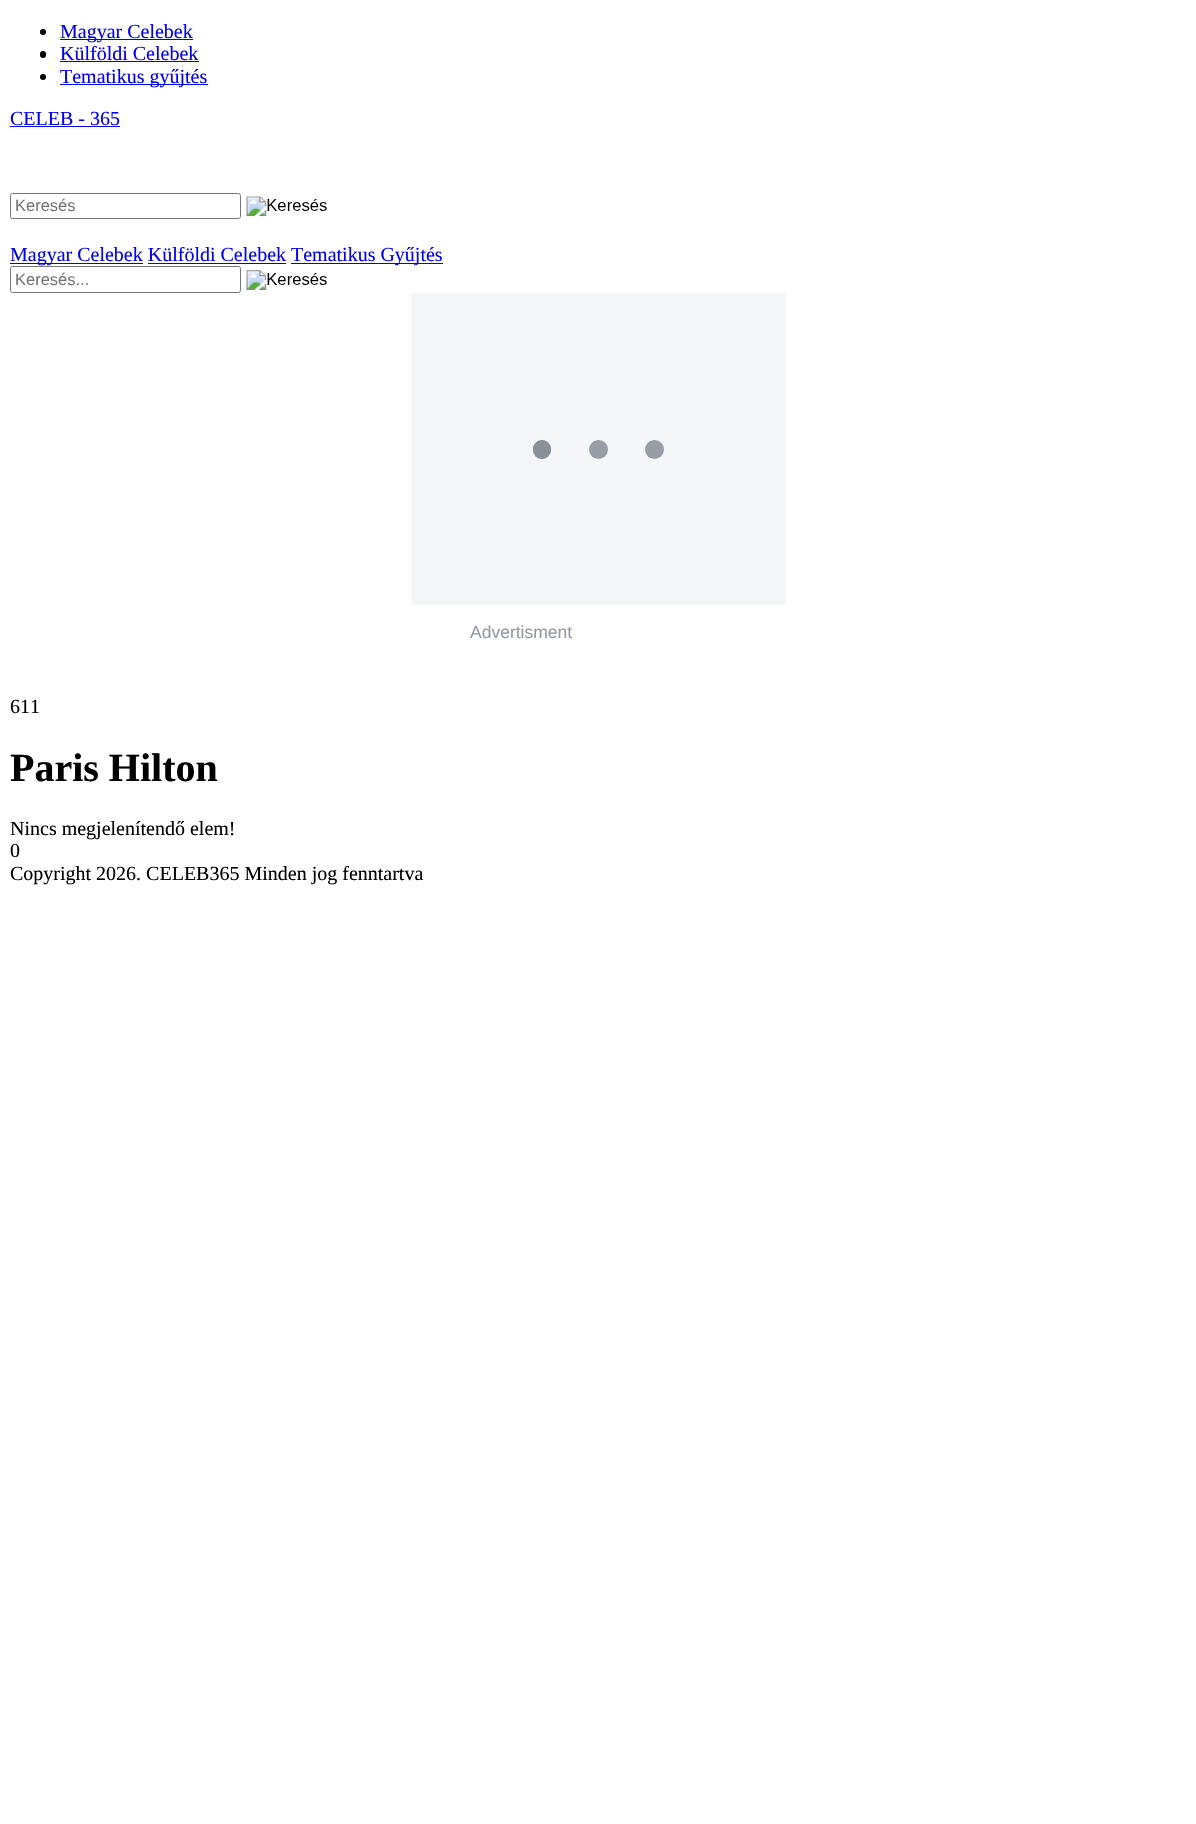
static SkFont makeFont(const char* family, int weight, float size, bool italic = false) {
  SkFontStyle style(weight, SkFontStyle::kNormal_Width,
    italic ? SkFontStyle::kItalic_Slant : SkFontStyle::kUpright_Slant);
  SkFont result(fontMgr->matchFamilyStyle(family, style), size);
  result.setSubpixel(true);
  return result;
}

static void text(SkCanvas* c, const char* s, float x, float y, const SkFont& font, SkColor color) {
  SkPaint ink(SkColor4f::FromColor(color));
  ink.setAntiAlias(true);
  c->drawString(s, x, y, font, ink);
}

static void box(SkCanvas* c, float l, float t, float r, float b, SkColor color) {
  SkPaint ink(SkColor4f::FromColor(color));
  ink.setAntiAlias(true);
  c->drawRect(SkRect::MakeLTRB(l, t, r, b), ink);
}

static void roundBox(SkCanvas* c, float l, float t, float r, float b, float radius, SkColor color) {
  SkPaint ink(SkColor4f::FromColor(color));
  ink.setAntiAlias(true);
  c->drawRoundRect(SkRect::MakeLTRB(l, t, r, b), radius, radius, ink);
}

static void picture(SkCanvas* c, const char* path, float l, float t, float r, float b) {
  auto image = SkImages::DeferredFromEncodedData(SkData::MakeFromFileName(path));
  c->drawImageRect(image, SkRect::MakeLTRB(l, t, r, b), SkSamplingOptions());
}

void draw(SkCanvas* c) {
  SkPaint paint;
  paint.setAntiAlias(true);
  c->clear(0xffffffff);
  paint.setColor(0xff000000);
  c->drawCircle(43, 32, 3, paint);
  box(c, 60, 39, 193, 40, 0xff0000ee);
  SkFont face1 = makeFont("Liberation Serif", 400, 20);
  text(c, "Magyar Celebek", 60, 38, face1, 0xff0000ee);
  roundBox(c, 40, 51, 46, 58, 3, 0xff000000);
  text(c, "Külföldi Celebek", 60, 60, face1, 0xff0000ee);
  box(c, 60, 61, 199, 62, 0xff0000ee);
  c->drawCircle(43, 77, 3, paint);
  box(c, 60, 84, 208, 85, 0xff0000ee);
  text(c, "Tematikus gyűjtés", 60, 83, face1, 0xff0000ee);
  text(c, "CELEB - 365", 10, 125, face1, 0xff0000ee);
  box(c, 10, 126, 120, 127, 0xff0000ee);
  paint.setStyle(SkPaint::kStroke_Style);
  paint.setStrokeWidth(1);
  paint.setColor(0xff767676);
  c->drawRoundRect(SkRect::MakeLTRB(10.5f, 193.5f, 240.5f, 218.5f), 2, 2, paint);
  SkFont face2 = makeFont("Liberation Sans", 400, 16.5f);
  text(c, "Keresés", 15, 211, face2, 0xff757575);
  picture(c, "img_01.png", 246, 196, 327, 217);
  box(c, 10, 263, 143, 264, 0xff0000ee);
  text(c, "Magyar Celebek Külföldi Celebek", 10, 261, face1, 0xff0000ee);
  box(c, 291, 263, 443, 264, 0xff0000ee);
  text(c, "Tematikus Gyűjtés", 291, 261, face1, 0xff0000ee);
  box(c, 148, 263, 286, 264, 0xff0000ee);
  c->drawRoundRect(SkRect::MakeLTRB(10.5f, 266.5f, 240.5f, 292.5f), 2, 2, paint);
  text(c, "Keresés...", 15, 285, face2, 0xff757575);
  picture(c, "img_02.png", 246, 270, 327, 290);
  box(c, 411, 293, 786, 605, 0xfff5f6f8);
  roundBox(c, 533, 440, 551, 459, 9, 0xff969da4);
  roundBox(c, 533, 440, 551, 459, 9, 0xdb868e96);
  paint.setStyle(SkPaint::kFill_Style);
  paint.setColor(0xff969da4);
  c->drawCircle(598.5f, 449.5f, 9.5f, paint);
  c->drawCircle(654.5f, 449.5f, 9.5f, paint);
  SkFont face3 = makeFont("Liberation Sans", 400, 17.5f);
  text(c, "Advertisment", 470, 638, face3, 0xff9299a1);
  text(c, "611", 10, 713, face1, 0xff000000);
  SkFont face4 = makeFont("Liberation Serif", 700, 40);
  text(c, "Paris Hilton", 10, 781, face4, 0xff000000);
  text(c, "Nincs megjelenítendő elem!", 10, 835, face1, 0xff000000);
  text(c, "0", 10, 857, face1, 0xff000000);
  text(c, "Copyright 2026. CELEB365 Minden jog fenntartva", 10, 880, face1, 0xff000000);
}
